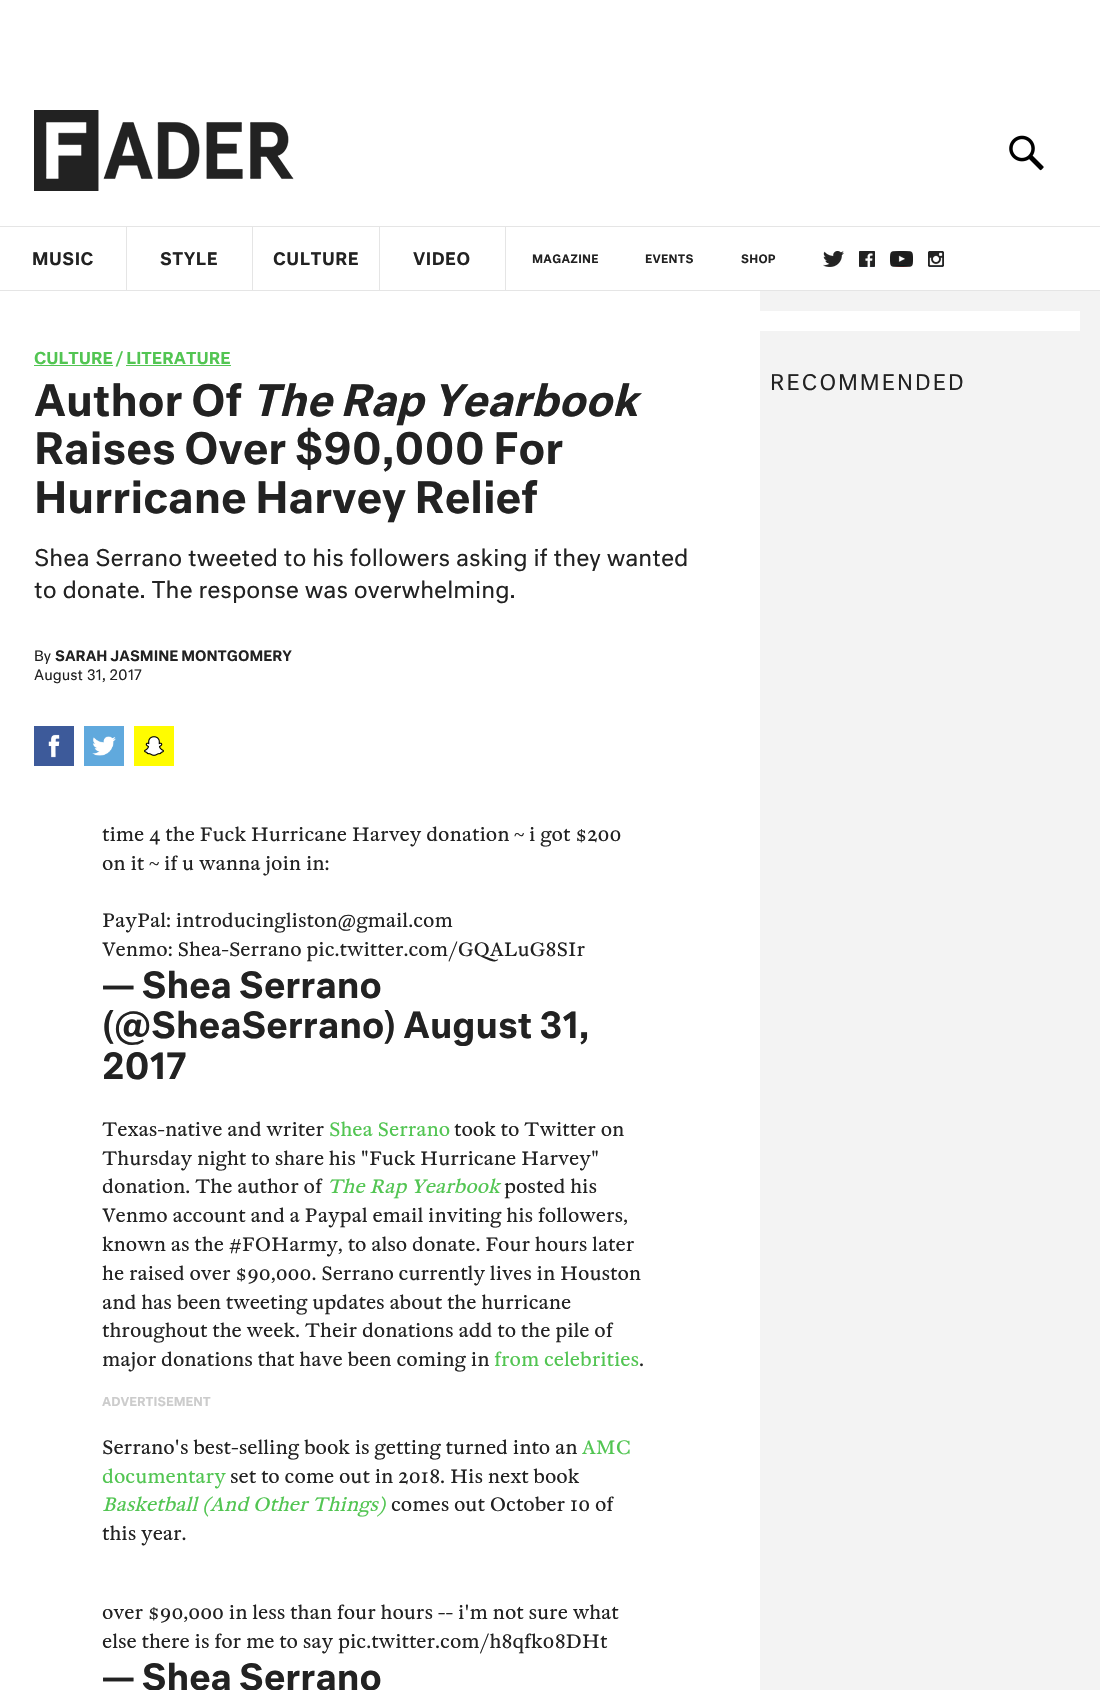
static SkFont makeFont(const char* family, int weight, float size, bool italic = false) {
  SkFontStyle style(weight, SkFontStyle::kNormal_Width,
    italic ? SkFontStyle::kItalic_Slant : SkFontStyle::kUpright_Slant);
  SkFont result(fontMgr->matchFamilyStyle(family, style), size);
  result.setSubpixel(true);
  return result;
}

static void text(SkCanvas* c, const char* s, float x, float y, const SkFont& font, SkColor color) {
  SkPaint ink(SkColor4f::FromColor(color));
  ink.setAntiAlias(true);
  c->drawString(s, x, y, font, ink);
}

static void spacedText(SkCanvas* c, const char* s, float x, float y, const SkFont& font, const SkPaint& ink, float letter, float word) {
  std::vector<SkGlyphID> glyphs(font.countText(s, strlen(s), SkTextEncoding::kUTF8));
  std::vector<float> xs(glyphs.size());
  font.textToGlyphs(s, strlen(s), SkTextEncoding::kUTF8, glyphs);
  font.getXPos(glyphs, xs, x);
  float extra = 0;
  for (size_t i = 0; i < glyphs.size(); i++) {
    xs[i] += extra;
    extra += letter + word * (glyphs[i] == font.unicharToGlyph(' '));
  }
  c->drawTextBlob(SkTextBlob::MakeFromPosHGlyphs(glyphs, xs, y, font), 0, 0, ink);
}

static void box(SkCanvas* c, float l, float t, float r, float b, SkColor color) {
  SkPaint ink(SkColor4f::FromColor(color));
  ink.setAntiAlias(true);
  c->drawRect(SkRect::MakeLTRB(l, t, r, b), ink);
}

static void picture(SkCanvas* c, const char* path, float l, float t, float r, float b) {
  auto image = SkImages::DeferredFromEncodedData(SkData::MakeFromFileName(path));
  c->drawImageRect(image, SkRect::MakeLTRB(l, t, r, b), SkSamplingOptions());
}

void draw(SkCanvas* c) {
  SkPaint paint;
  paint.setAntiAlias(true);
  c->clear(0xffffffff);
  picture(c, "img_01.png", 34, 110, 294, 191);
  picture(c, "img_02.png", 1009, 135, 1044, 171);
  box(c, 0, 226, 1100, 227, 0xffe5e5e5);
  box(c, 126, 226, 127, 291, 0xffe5e5e5);
  box(c, 0, 290, 127, 291, 0xffe5e5e5);
  SkFont face1 = makeFont("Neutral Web", 500, 16.75f);
  paint.setColor(0xff222222);
  spacedText(c, "MUSIC", 32, 265, face1, paint, 0.5f, 0);
  box(c, 252, 226, 253, 291, 0xffe5e5e5);
  box(c, 127, 290, 253, 291, 0xffe5e5e5);
  spacedText(c, "STYLE", 160, 265, face1, paint, 0.5f, 0);
  box(c, 379, 226, 380, 291, 0xffe5e5e5);
  box(c, 253, 290, 380, 291, 0xffe5e5e5);
  spacedText(c, "CULTURE", 273, 265, face1, paint, 0.5f, 0);
  box(c, 505, 226, 506, 291, 0xffe5e5e5);
  box(c, 380, 290, 1100, 291, 0xffe5e5e5);
  spacedText(c, "VIDEO", 413, 265, face1, paint, 0.5f, 0);
  SkFont face2 = makeFont("Neutral Web", 500, 11.25f);
  spacedText(c, "MAGAZINE", 532, 263, face2, paint, 0.25f, 0);
  spacedText(c, "EVENTS", 645, 263, face2, paint, 0.25f, 0);
  spacedText(c, "SHOP", 741, 263, face2, paint, 0.25f, 0);
  picture(c, "img_03.png", 823, 251, 844, 267);
  picture(c, "img_04.png", 859, 251, 875, 267);
  picture(c, "img_05.png", 890, 251, 913, 267);
  picture(c, "img_06.png", 928, 251, 944, 267);
  box(c, 34, 365, 113, 366, 0xff52c552);
  SkFont face3 = makeFont("Neutral Web", 500, 16);
  text(c, "CULTURE / LITERATURE", 34, 364, face3, 0xff52c552);
  box(c, 126, 365, 231, 366, 0xff52c552);
  SkFont face4 = makeFont("Neutral Web", 500, 42);
  text(c, "Author Of", 34, 416, face4, 0xff222222);
  SkFont face5 = makeFont("Neutral Web", 500, 42, true);
  text(c, "The Rap Yearbook", 251, 416, face5, 0xff222222);
  text(c, "Raises Over $90,000 For", 34, 464, face4, 0xff222222);
  text(c, "Hurricane Harvey Relief", 34, 513, face4, 0xff222222);
  SkFont face6 = makeFont("Neutral Web", 400, 22.4f);
  text(c, "Shea Serrano tweeted to his followers asking if they wanted", 34, 566, face6, 0xff222222);
  text(c, "to donate. The response was overwhelming.", 34, 598, face6, 0xff222222);
  SkFont face7 = makeFont("Neutral Web", 400, 14);
  text(c, "By", 34, 661, face7, 0xff222222);
  SkFont face8 = makeFont("Neutral Web", 500, 14);
  text(c, "SARAH JASMINE MONTGOMERY", 55, 661, face8, 0xff222222);
  text(c, "August 31, 2017", 34, 680, face7, 0xff222222);
  box(c, 34, 726, 74, 766, 0xff3d5a9a);
  picture(c, "img_07.png", 48, 734, 60, 758);
  box(c, 84, 726, 124, 766, 0xff60a9dd);
  picture(c, "img_08.png", 92, 736, 116, 756);
  box(c, 134, 726, 174, 766, 0xfffffc00);
  picture(c, "img_09.png", 144, 736, 164, 756);
  SkFont face9 = makeFont("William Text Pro", 400, 19.2f);
  text(c, "time 4 the Fuck Hurricane Harvey donation", 102, 841, face9, 0xff222222);
  SkFont face10 = makeFont("Liberation Serif", 400, 19.2f);
  text(c, "~", 514, 841, face10, 0xff222222);
  text(c, "i got $200", 529, 841, face9, 0xff222222);
  text(c, "on it", 102, 870, face9, 0xff222222);
  text(c, "~", 149, 870, face10, 0xff222222);
  text(c, "if u wanna join in:", 164, 870, face9, 0xff222222);
  text(c, "PayPal: introducingliston@gmail.com", 102, 927, face9, 0xff222222);
  text(c, "Venmo: Shea-Serrano pic.twitter.com/GQALuG8SIr", 102, 956, face9, 0xff222222);
  SkFont face11 = makeFont("Neutral Web", 500, 35);
  text(c, "— Shea Serrano", 102, 998, face11, 0xff222222);
  text(c, "(@SheaSerrano) August 31,", 102, 1038, face11, 0xff222222);
  text(c, "2017", 102, 1079, face11, 0xff222222);
  text(c, "Texas-native and writer", 102, 1136, face9, 0xff222222);
  text(c, "Shea Serrano", 329, 1136, face9, 0xff52c552);
  text(c, "took to Twitter on", 454, 1136, face9, 0xff222222);
  text(c, "Thursday night to share his \"Fuck Hurricane Harvey\"", 102, 1165, face9, 0xff222222);
  text(c, "donation. The author of", 102, 1193, face9, 0xff222222);
  SkFont face12 = makeFont("William Text Pro", 400, 19.2f, true);
  text(c, "The Rap Yearbook", 327, 1193, face12, 0xff52c552);
  text(c, "posted his", 504, 1193, face9, 0xff222222);
  text(c, "Venmo account and a Paypal email inviting his followers,", 102, 1222, face9, 0xff222222);
  text(c, "known as the #FOHarmy, to also donate. Four hours later", 102, 1251, face9, 0xff222222);
  text(c, "he raised over $90,000. Serrano currently lives in Houston", 102, 1280, face9, 0xff222222);
  text(c, "and has been tweeting updates about the hurricane", 102, 1309, face9, 0xff222222);
  text(c, "throughout the week. Their donations add to the pile of", 102, 1337, face9, 0xff222222);
  text(c, "major donations that have been coming in", 102, 1366, face9, 0xff222222);
  text(c, "from celebrities", 494, 1366, face9, 0xff52c552);
  text(c, ".", 639, 1366, face9, 0xff222222);
  SkFont face13 = makeFont("Neutral Web", 500, 12);
  text(c, "ADVERTISEMENT", 102, 1406, face13, 0xffcccccc);
  text(c, "Serrano's best-selling book is getting turned into an", 102, 1454, face9, 0xff222222);
  text(c, "AMC", 582, 1454, face9, 0xff52c552);
  text(c, "documentary", 102, 1483, face9, 0xff52c552);
  text(c, "set to come out in 2018. His next book", 230, 1483, face9, 0xff222222);
  text(c, "Basketball (And Other Things)", 102, 1511, face12, 0xff52c552);
  text(c, "comes out October 10 of", 391, 1511, face9, 0xff222222);
  text(c, "this year.", 102, 1540, face9, 0xff222222);
  text(c, "over $90,000 in less than four hours -- i'm not sure what", 102, 1619, face9, 0xff222222);
  text(c, "else there is for me to say pic.twitter.com/h8qfk08DHt", 102, 1648, face9, 0xff222222);
  text(c, "— Shea Serrano", 102, 1690, face11, 0xff222222);
  box(c, 760, 291, 1100, 1690, 0xfff3f3f3);
  box(c, 760, 311, 1080, 331, 0xffffffff);
  SkFont face14 = makeFont("Neutral Web", 400, 21);
  spacedText(c, "RECOMMENDED", 770, 390, face14, paint, 2, 0);
}
